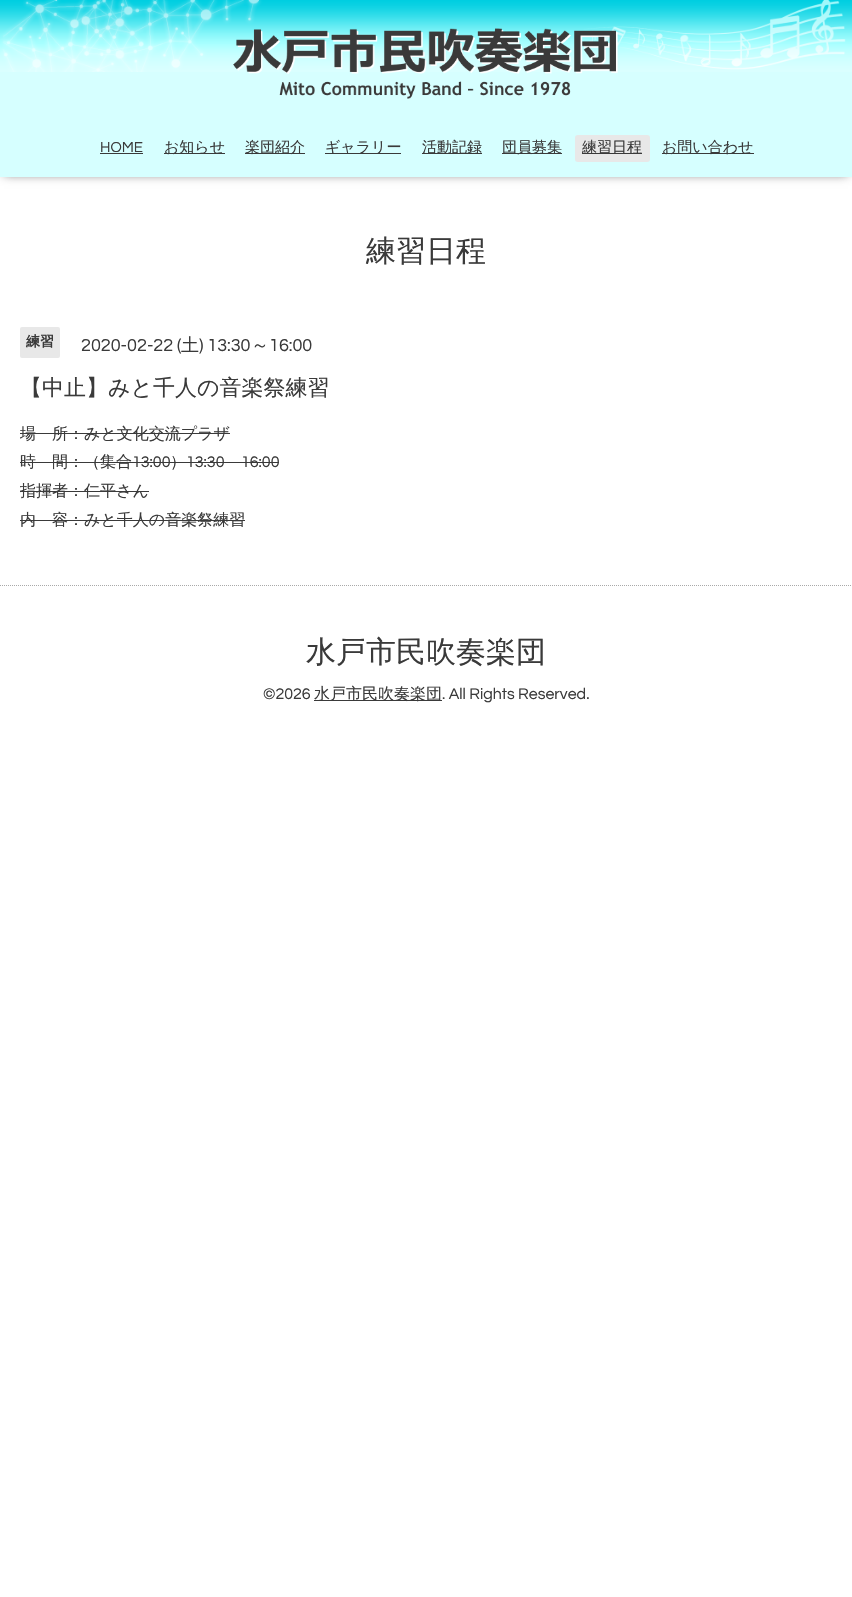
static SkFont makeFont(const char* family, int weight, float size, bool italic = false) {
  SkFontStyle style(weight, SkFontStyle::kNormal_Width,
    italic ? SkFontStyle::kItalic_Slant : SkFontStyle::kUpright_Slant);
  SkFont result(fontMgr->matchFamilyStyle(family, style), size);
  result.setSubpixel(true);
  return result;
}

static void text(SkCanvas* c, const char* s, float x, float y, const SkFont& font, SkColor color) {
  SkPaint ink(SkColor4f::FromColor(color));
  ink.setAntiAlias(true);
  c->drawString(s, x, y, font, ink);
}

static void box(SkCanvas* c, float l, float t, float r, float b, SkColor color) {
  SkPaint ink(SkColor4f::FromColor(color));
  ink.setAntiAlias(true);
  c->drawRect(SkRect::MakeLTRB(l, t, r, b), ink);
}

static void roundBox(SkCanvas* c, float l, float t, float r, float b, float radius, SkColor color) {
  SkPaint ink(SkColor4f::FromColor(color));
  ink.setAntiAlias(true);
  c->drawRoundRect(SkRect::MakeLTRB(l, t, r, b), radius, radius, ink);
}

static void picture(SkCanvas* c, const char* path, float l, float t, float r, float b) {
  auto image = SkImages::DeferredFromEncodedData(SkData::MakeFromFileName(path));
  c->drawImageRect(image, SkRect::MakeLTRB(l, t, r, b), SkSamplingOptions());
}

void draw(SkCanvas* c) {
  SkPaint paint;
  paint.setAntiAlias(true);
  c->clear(0xffffffff);
  paint.setColor(0x99000000);
  paint.setMaskFilter(SkMaskFilter::MakeBlur(kNormal_SkBlurStyle, 5));
  c->drawRect(SkRect::MakeLTRB(4, 5, 848, 174), paint);
  paint.setMaskFilter(nullptr);
  box(c, 0, 72, 852, 177, 0xffd6ffff);
  picture(c, "img_01.png", 0, 0, 852, 72);
  picture(c, "img_02.png", 233, 28, 618, 99);
  SkFont face1 = makeFont("Questrial", 400, 15);
  text(c, "HOME", 100, 152, face1, 0xff3a3a3a);
  box(c, 100, 153, 143, 154, 0xff3a3a3a);
  box(c, 164, 153, 225, 154, 0xff3a3a3a);
  SkFont face2 = makeFont("WenQuanYi Zen Hei", 500, 15);
  text(c, "お知らせ", 164, 152, face2, 0xff3a3a3a);
  box(c, 245, 153, 305, 154, 0xff3a3a3a);
  text(c, "楽団紹介", 245, 152, face2, 0xff3a3a3a);
  box(c, 325, 153, 401, 154, 0xff3a3a3a);
  text(c, "ギャラリー", 325, 152, face2, 0xff3a3a3a);
  box(c, 422, 153, 482, 154, 0xff3a3a3a);
  text(c, "活動記録", 422, 152, face2, 0xff3a3a3a);
  box(c, 502, 153, 562, 154, 0xff3a3a3a);
  text(c, "団員募集", 502, 152, face2, 0xff3a3a3a);
  roundBox(c, 575, 135, 650, 162, 3, 0xffe8e8e8);
  box(c, 582, 153, 642, 154, 0xff3a3a3a);
  text(c, "練習日程", 582, 152, face2, 0xff3a3a3a);
  box(c, 662, 153, 754, 154, 0xff3a3a3a);
  text(c, "お問い合わせ", 662, 152, face2, 0xff3a3a3a);
  SkFont face3 = makeFont("WenQuanYi Zen Hei", 500, 30);
  text(c, "練習日程", 366, 261, face3, 0xff3a3a3a);
  roundBox(c, 20, 327, 60, 358, 2, 0xffe8e8e8);
  SkFont face4 = makeFont("WenQuanYi Zen Hei", 700, 14);
  text(c, "練習", 26, 346, face4, 0xff3a3a3a);
  SkFont face5 = makeFont("Questrial", 400, 18);
  text(c, "2020-02-22 (", 81, 351, face5, 0xff3a3a3a);
  SkFont face6 = makeFont("WenQuanYi Zen Hei", 500, 18);
  text(c, "土", 181, 351, face6, 0xff3a3a3a);
  text(c, ") 13:30", 199, 351, face5, 0xff3a3a3a);
  text(c, "～", 251, 351, face6, 0xff3a3a3a);
  text(c, "16:00", 269, 351, face5, 0xff3a3a3a);
  SkFont face7 = makeFont("WenQuanYi Zen Hei", 500, 22);
  text(c, "【中止】みと千人の音楽祭練習", 20, 395, face7, 0xff3a3a3a);
  SkFont face8 = makeFont("WenQuanYi Zen Hei", 500, 16);
  text(c, "場　所：みと文化交流プラザ", 20, 439, face8, 0xff3a3a3a);
  box(c, 20, 433, 230, 434, 0xff3a3a3a);
  text(c, "時　間：（集合", 20, 467, face8, 0xff3a3a3a);
  SkFont face9 = makeFont("Questrial", 400, 16);
  text(c, "13:00", 132, 467, face9, 0xff3a3a3a);
  box(c, 20, 462, 279, 463, 0xff3a3a3a);
  text(c, "）", 170, 467, face8, 0xff3a3a3a);
  text(c, "13:30", 186, 467, face9, 0xff3a3a3a);
  text(c, "16:00", 241, 467, face9, 0xff3a3a3a);
  text(c, "指揮者：仁平さん", 20, 496, face8, 0xff3a3a3a);
  box(c, 20, 491, 149, 492, 0xff3a3a3a);
  text(c, "内　容：みと千人の音楽祭練習", 20, 525, face8, 0xff3a3a3a);
  box(c, 20, 520, 245, 521, 0xff3a3a3a);
  paint.setStyle(SkPaint::kStroke_Style);
  paint.setStrokeWidth(1);
  paint.setColor(0xffa9a9a9);
  paint.setPathEffect(SkDashPathEffect::Make({{1, 1}}, 0));
  c->drawPath(SkPathBuilder().moveTo(0, 585.5f).lineTo(852, 585.5f).detach(), paint);
  paint.setPathEffect(nullptr);
  text(c, "水戸市民吹奏楽団", 306, 662, face3, 0xff3a3a3a);
  text(c, "©2026", 263, 699, face9, 0xff3a3a3a);
  box(c, 314, 700, 442, 701, 0xff3a3a3a);
  text(c, "水戸市民吹奏楽団", 314, 699, face8, 0xff3a3a3a);
  text(c, ". All Rights Reserved.", 442, 699, face9, 0xff3a3a3a);
}
